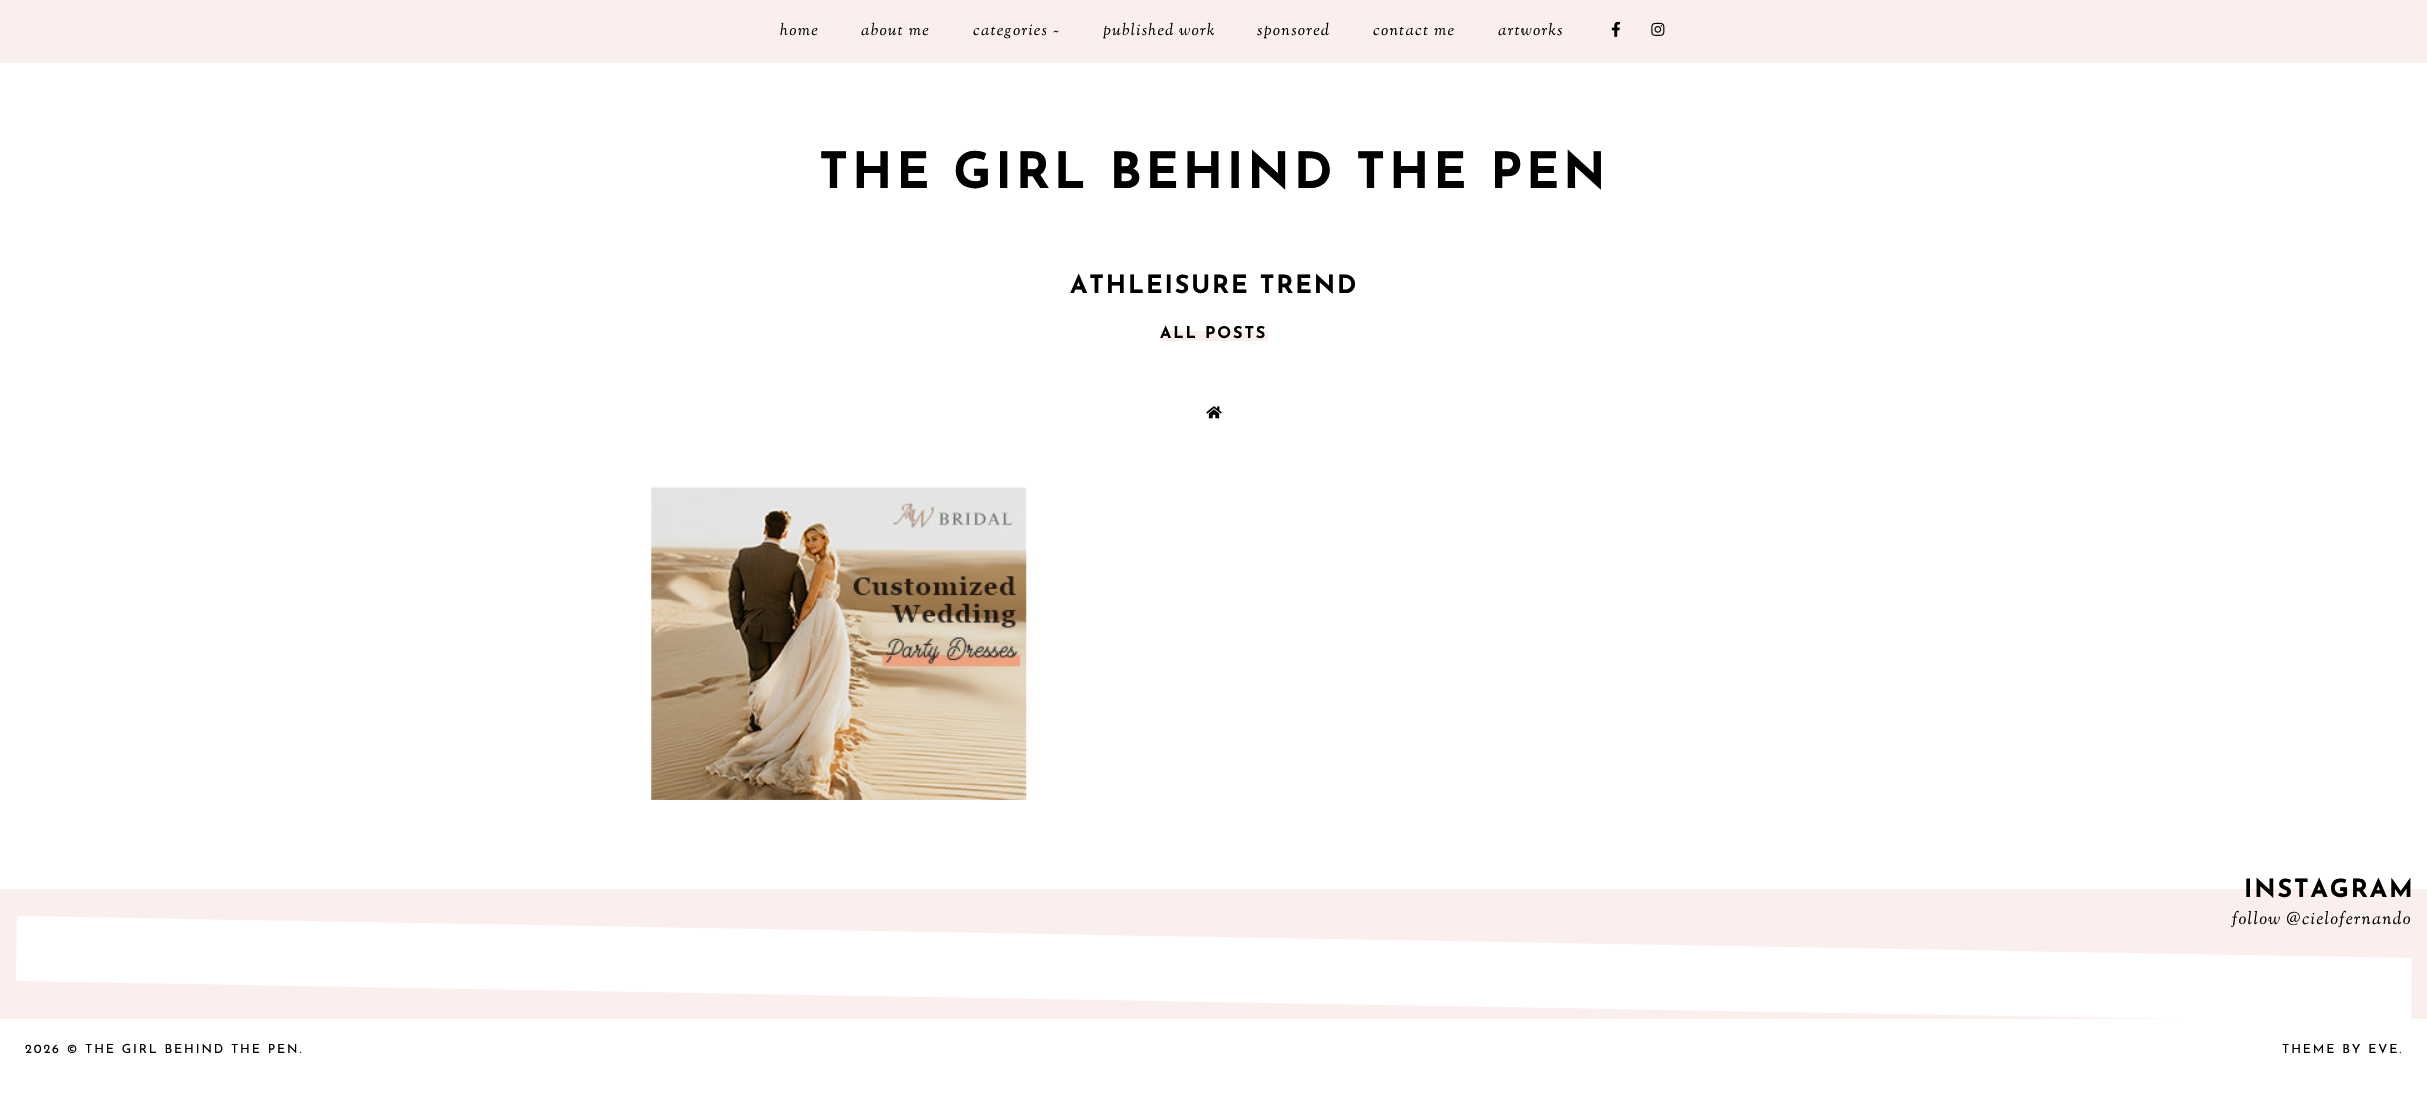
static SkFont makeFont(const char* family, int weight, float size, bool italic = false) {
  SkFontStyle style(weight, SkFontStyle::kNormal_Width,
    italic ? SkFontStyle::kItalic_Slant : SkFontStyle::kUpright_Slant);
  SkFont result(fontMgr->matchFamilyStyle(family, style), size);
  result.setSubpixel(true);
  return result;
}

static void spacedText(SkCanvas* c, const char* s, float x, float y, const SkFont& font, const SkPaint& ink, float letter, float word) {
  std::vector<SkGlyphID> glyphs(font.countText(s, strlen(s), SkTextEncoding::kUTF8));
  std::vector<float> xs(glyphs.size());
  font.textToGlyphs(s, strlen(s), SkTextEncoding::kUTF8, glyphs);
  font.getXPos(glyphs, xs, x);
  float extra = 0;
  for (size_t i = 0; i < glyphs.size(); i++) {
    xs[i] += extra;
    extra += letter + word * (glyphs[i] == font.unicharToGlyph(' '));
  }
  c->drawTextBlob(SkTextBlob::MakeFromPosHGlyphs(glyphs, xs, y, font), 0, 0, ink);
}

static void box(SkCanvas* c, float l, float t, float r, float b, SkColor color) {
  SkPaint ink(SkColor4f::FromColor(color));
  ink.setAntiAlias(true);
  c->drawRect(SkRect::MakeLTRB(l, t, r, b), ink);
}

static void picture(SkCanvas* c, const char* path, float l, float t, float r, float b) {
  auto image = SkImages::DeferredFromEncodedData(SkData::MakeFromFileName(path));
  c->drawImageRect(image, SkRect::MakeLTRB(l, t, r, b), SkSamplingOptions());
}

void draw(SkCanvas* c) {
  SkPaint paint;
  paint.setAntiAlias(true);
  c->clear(0xffffffff);
  box(c, 0, 0, 2427, 63, 0xfffbefee);
  SkFont face1 = makeFont("Sorts Mill Goudy", 400, 16.25f, true);
  paint.setColor(0xff000000);
  spacedText(c, "home", 780, 35, face1, paint, 1.25f, 0);
  spacedText(c, "about me", 861, 35, face1, paint, 1.25f, 0);
  spacedText(c, "categories", 973, 35, face1, paint, 1.25f, 0);
  spacedText(c, "~", 1053, 35, face1, paint, 1.25f, 0);
  spacedText(c, "published work", 1103, 35, face1, paint, 1.25f, 0);
  spacedText(c, "sponsored", 1257, 35, face1, paint, 1.25f, 0);
  spacedText(c, "contact me", 1373, 35, face1, paint, 1.25f, 0);
  spacedText(c, "artworks", 1498, 35, face1, paint, 1.25f, 0);
  picture(c, "img_01.png", 1611, 21, 1620, 37);
  picture(c, "img_02.png", 1651, 22, 1665, 36);
  SkFont face2 = makeFont("Josefin Sans", 700, 50);
  spacedText(c, "THE GIRL BEHIND THE PEN", 819, 188, face2, paint, 3.75f, 0);
  SkFont face3 = makeFont("Josefin Sans", 700, 25);
  spacedText(c, "ATHLEISURE TREND", 1070, 293, face3, paint, 1.9f, 0);
  box(c, 1160, 331, 1268, 341, 0xfffbefee);
  SkFont face4 = makeFont("Josefin Sans", 700, 16.25f);
  spacedText(c, "ALL POSTS", 1160, 338, face4, paint, 1.9f, 0);
  picture(c, "img_03.png", 1206, 406, 1222, 419);
  picture(c, "img_04.png", 651, 487, 1027, 800);
  box(c, 0, 889, 2427, 1019, 0xfffbefee);
  spacedText(c, "INSTAGRAM", 2244, 897, face3, paint, 1.9f, 0);
  SkFont face5 = makeFont("Sorts Mill Goudy", 400, 17.5f, true);
  spacedText(c, "follow @cielofernando", 2232, 924, face5, paint, 1.25f, 0);
  paint.setColor(0xffffffff);
  c->drawPath(SkPathBuilder().moveTo(17, 916).lineTo(2412, 958).lineTo(2411, 1023).lineTo(16, 981).close().detach(), paint);
  SkFont face6 = makeFont("Josefin Sans", 400, 12.5f);
  paint.setColor(0xff000000);
  spacedText(c, "2026 © THE GIRL BEHIND THE PEN.", 25, 1053, face6, paint, 1.9f, 0);
  spacedText(c, "THEME BY EVE.", 2282, 1053, face6, paint, 1.9f, 0);
}
